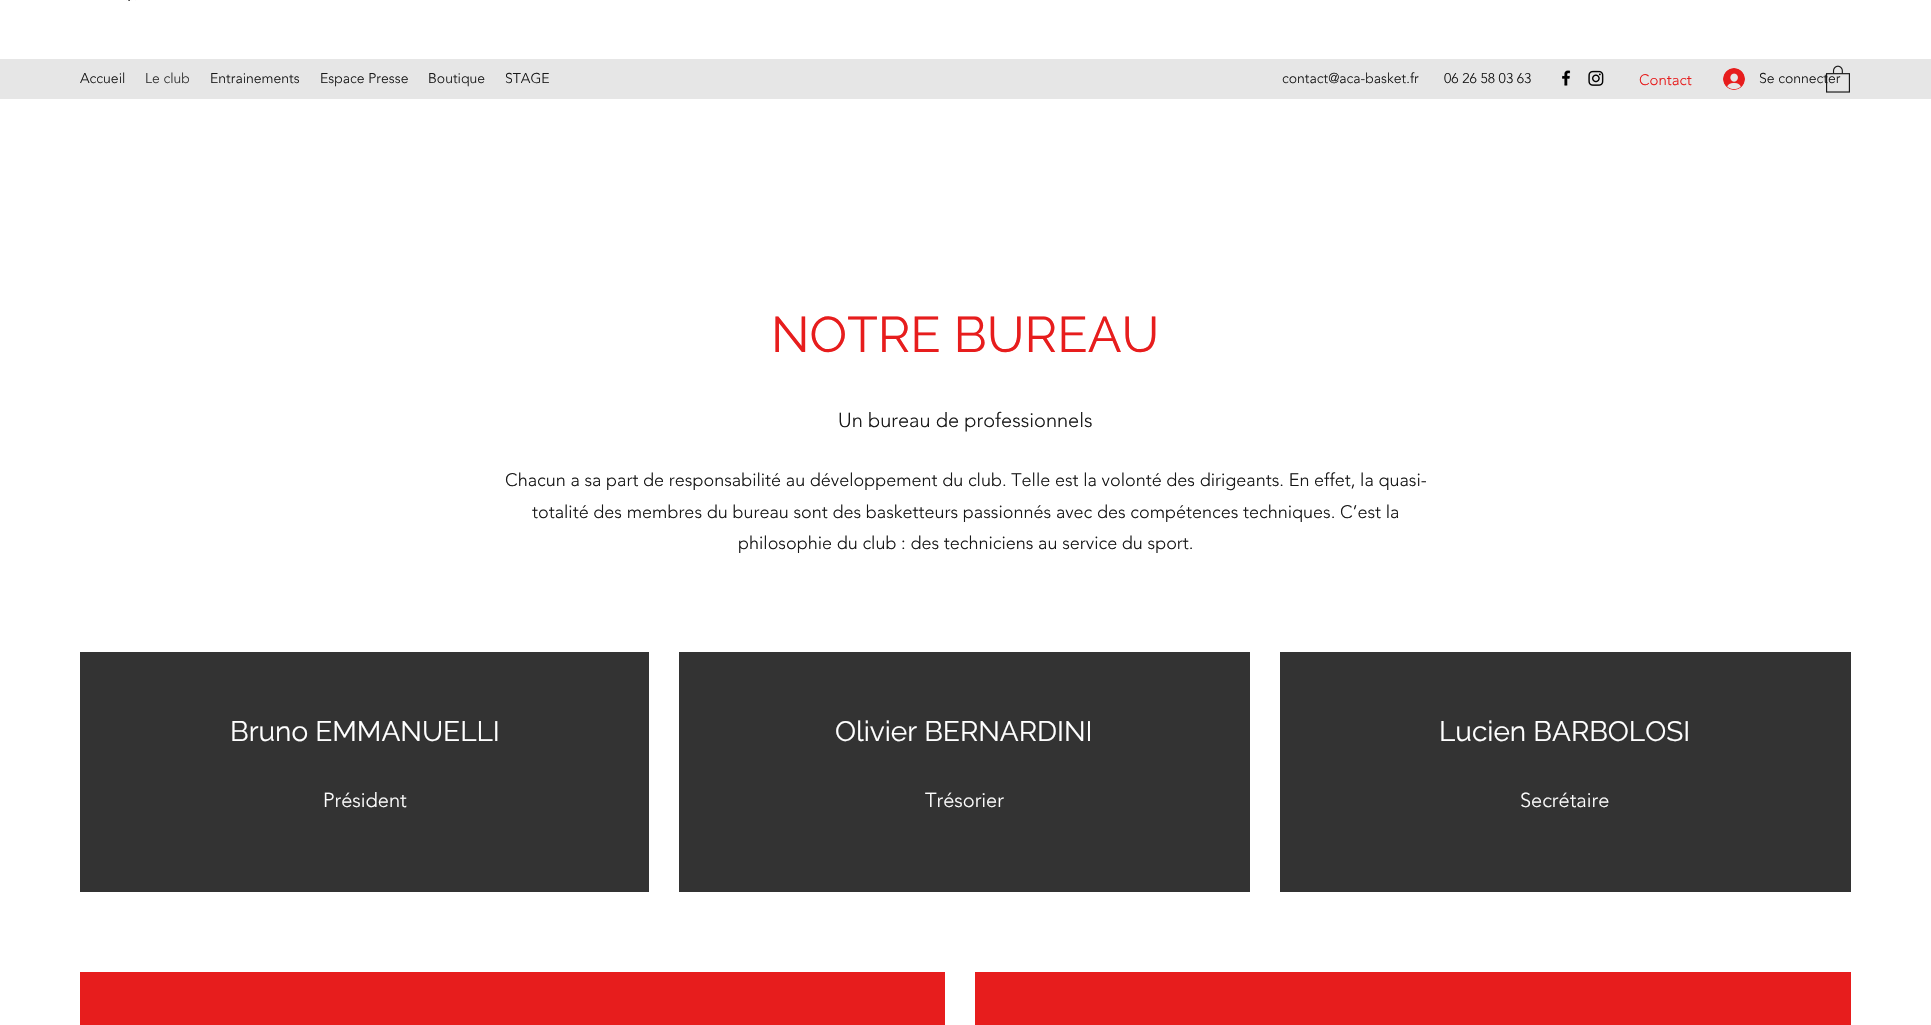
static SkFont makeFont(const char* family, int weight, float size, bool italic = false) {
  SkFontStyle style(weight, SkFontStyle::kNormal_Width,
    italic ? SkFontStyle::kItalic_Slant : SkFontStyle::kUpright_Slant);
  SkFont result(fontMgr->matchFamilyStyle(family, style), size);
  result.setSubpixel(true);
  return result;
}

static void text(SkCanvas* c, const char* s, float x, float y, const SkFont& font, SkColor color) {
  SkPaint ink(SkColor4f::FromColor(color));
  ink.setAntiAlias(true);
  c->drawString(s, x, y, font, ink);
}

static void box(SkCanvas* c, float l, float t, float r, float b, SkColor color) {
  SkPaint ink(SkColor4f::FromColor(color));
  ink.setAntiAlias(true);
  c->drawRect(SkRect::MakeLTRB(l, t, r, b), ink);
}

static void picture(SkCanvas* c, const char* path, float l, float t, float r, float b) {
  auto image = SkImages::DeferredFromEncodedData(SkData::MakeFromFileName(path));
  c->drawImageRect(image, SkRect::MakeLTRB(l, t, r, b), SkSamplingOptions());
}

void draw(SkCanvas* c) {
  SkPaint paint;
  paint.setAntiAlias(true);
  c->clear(0xffffffff);
  picture(c, "img_01.png", 126, 0, 136, 1);
  box(c, 0, 59, 1931, 99, 0xffe6e6e6);
  SkFont face1 = makeFont("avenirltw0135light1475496", 300, 14);
  text(c, "Accueil", 80, 83, face1, 0xff181818);
  text(c, "Le club", 145, 83, face1, 0xff333333);
  text(c, "Entrainements", 210, 83, face1, 0xff181818);
  text(c, "Espace Presse", 320, 83, face1, 0xff181818);
  text(c, "Boutique", 428, 83, face1, 0xff181818);
  text(c, "STAGE", 505, 83, face1, 0xff181818);
  text(c, "contact@aca-basket.fr", 1282, 83, face1, 0xff181818);
  text(c, "06 26 58 03 63", 1444, 83, face1, 0xff181818);
  picture(c, "img_02.png", 1562, 70, 1571, 86);
  picture(c, "img_03.png", 1588, 70, 1604, 86);
  text(c, "Se connecter", 1759, 83, face1, 0xff181818);
  picture(c, "img_04.png", 1826, 65, 1850, 93);
  SkFont face2 = makeFont("avenirltw0135light1475496", 300, 15);
  text(c, "Contact", 1639, 85, face2, 0xffe71d1d);
  picture(c, "img_05.png", 1723, 68, 1745, 90);
  SkFont face3 = makeFont("Raleway", 400, 50);
  text(c, "NOTRE BUREAU", 771, 352, face3, 0xffe71d1d);
  SkFont face4 = makeFont("avenirltw0135light1475496", 300, 20);
  text(c, "Un bureau de professionnels", 838, 427, face4, 0xff181818);
  SkFont face5 = makeFont("avenirltw0135light1475496", 300, 18);
  text(c, "Chacun a sa part de responsabilité au développement du club. Telle est la volonté des dirigeants. En effet, la quasi-", 505, 486, face5, 0xff181818);
  text(c, "totalité des membres du bureau sont des basketteurs passionnés avec des compétences techniques. C’est la", 532, 518, face5, 0xff181818);
  text(c, "philosophie du club : des techniciens au service du sport.", 738, 549, face5, 0xff181818);
  box(c, 80, 652, 649, 892, 0xff333333);
  SkFont face6 = makeFont("Raleway", 400, 28);
  text(c, "Bruno EMMANUELLI", 230, 741, face6, 0xffffffff);
  text(c, "Président", 323, 807, face4, 0xffffffff);
  box(c, 679, 652, 1250, 892, 0xff333333);
  text(c, "Olivier BERNARDINI", 835, 741, face6, 0xffffffff);
  text(c, "Trésorier", 925, 807, face4, 0xffffffff);
  box(c, 1280, 652, 1851, 892, 0xff333333);
  text(c, "Lucien BARBOLOSI", 1439, 741, face6, 0xffffffff);
  text(c, "Secrétaire", 1520, 807, face4, 0xffffffff);
  box(c, 80, 972, 945, 1025, 0xffe71d1d);
  box(c, 975, 972, 1851, 1025, 0xffe71d1d);
}
